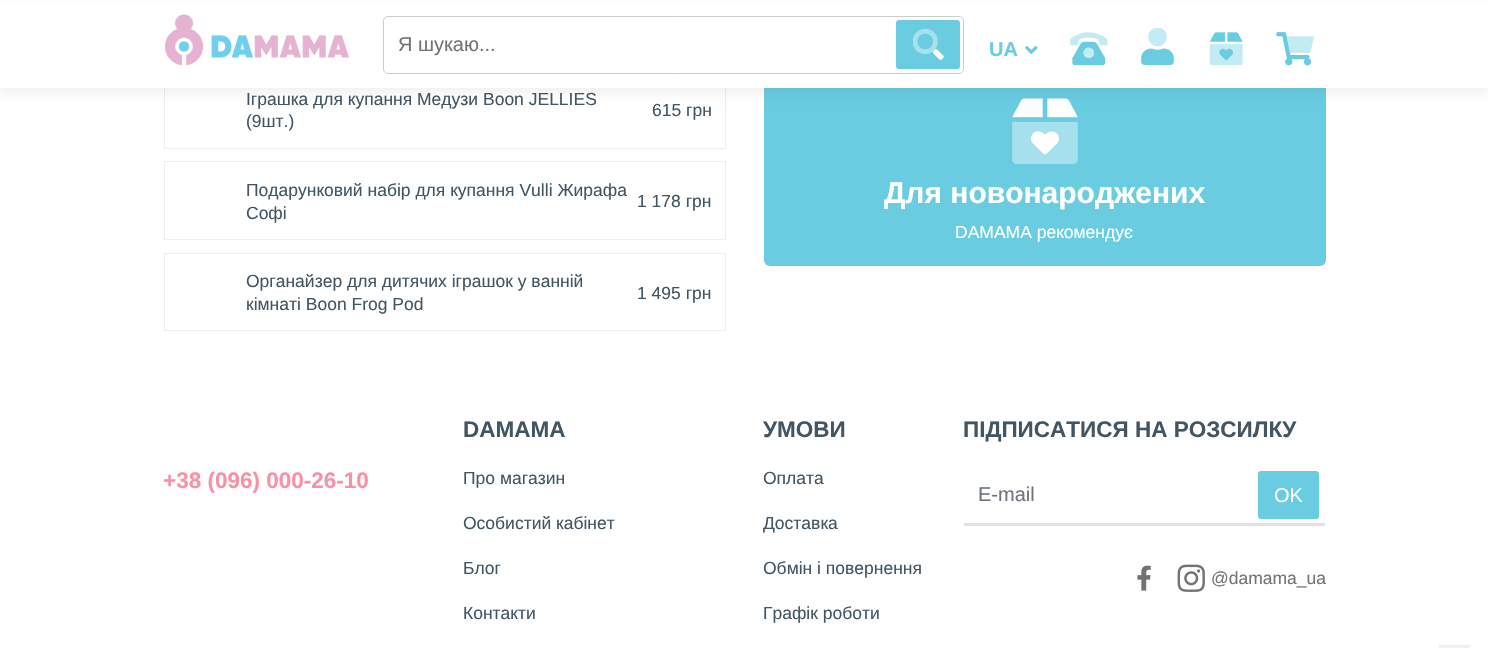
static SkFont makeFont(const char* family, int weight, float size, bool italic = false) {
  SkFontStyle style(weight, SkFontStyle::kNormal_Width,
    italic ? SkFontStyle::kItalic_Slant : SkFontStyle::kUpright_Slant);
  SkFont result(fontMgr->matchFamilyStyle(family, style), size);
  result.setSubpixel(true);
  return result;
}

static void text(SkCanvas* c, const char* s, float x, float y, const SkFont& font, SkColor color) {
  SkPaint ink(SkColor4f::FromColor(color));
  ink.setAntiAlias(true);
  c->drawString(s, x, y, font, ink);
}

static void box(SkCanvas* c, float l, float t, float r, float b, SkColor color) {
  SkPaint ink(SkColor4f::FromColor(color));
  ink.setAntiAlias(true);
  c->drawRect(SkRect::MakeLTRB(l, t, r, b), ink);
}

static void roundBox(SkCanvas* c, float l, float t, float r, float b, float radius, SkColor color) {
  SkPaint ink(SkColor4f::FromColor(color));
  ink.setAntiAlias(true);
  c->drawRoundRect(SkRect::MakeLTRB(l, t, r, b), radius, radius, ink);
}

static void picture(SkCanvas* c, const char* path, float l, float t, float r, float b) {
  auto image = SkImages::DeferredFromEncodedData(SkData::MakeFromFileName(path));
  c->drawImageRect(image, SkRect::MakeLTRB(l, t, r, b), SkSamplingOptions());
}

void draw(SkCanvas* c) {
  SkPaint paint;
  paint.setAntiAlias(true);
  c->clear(0xffffffff);
  paint.setStyle(SkPaint::kStroke_Style);
  paint.setStrokeWidth(1);
  paint.setColor(0xffeeeeee);
  c->drawRect(SkRect::MakeLTRB(164.5f, 70.5f, 725.5f, 148.5f), paint);
  roundBox(c, 764, 69, 1326, 266, 6, 0xff69cce0);
  picture(c, "img_08.png", 1012, 98, 1078, 165);
  paint.setStyle(SkPaint::kFill_Style);
  paint.setColor(0x0d000000);
  paint.setMaskFilter(SkMaskFilter::MakeBlur(kNormal_SkBlurStyle, 5));
  c->drawRect(SkRect::MakeLTRB(0, 6, 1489, 94), paint);
  paint.setMaskFilter(nullptr);
  box(c, 0, 2, 1488, 88, 0xffffffff);
  picture(c, "img_01.png", 165, 14, 350, 66);
  paint.setStyle(SkPaint::kStroke_Style);
  paint.setColor(0xffcccccc);
  c->drawRoundRect(SkRect::MakeLTRB(383.5f, 16.5f, 963.5f, 73.5f), 4.5f, 4.5f, paint);
  SkFont face1 = makeFont("Liberation Sans", 400, 20);
  text(c, "Я шукаю...", 398, 51, face1, 0xff747373);
  paint.setStyle(SkPaint::kFill_Style);
  paint.setColor(0xff69cce0);
  c->drawRoundRect(SkRect::MakeLTRB(896.5f, 20.5f, 959.5f, 68.5f), 2, 2, paint);
  paint.setStyle(SkPaint::kStroke_Style);
  c->drawRoundRect(SkRect::MakeLTRB(896.5f, 20.5f, 959.5f, 68.5f), 2, 2, paint);
  picture(c, "img_02.png", 913, 29, 944, 60);
  SkFont face2 = makeFont("Liberation Sans", 700, 20);
  text(c, "UA", 989, 56, face2, 0xff69cce0);
  picture(c, "img_03.png", 1025, 46, 1038, 54);
  picture(c, "img_04.png", 1070, 32, 1108, 66);
  picture(c, "img_05.png", 1141, 28, 1174, 65);
  picture(c, "img_06.png", 1209, 32, 1243, 66);
  picture(c, "img_07.png", 1276, 32, 1314, 66);
  SkFont face3 = makeFont("Liberation Sans", 400, 17.5f);
  text(c, "Іграшка для купання Медузи Boon JELLIES", 246, 105, face3, 0xff425563);
  text(c, "(9шт.)", 246, 127, face3, 0xff425563);
  text(c, "615 грн", 652, 116, face3, 0xff425563);
  paint.setColor(0xffeeeeee);
  c->drawRect(SkRect::MakeLTRB(164.5f, 161.5f, 725.5f, 239.5f), paint);
  text(c, "Подарунковий набір для купання Vulli Жирафа", 246, 196, face3, 0xff425563);
  text(c, "Софі", 246, 219, face3, 0xff425563);
  text(c, "1 178 грн", 637, 207, face3, 0xff425563);
  c->drawRect(SkRect::MakeLTRB(164.5f, 253.5f, 725.5f, 330.5f), paint);
  text(c, "Органайзер для дитячих іграшок у ванній", 246, 287, face3, 0xff425563);
  text(c, "кімнаті Boon Frog Pod", 246, 310, face3, 0xff425563);
  text(c, "1 495 грн", 637, 299, face3, 0xff425563);
  SkFont face4 = makeFont("Liberation Sans", 700, 30);
  text(c, "Для новонароджених", 884, 203, face4, 0xffffffff);
  text(c, "DAMAMA рекомендує", 955, 238, face3, 0xffffffff);
  SkFont face5 = makeFont("Liberation Sans", 700, 22.5f);
  text(c, "+38 (096) 000-26-10", 163, 488, face5, 0xfff891a5);
  text(c, "DAMAMA", 463, 437, face5, 0xff425563);
  text(c, "Про магазин", 463, 484, face3, 0xff425563);
  text(c, "Особистий кабінет", 463, 529, face3, 0xff425563);
  text(c, "Блог", 463, 574, face3, 0xff425563);
  text(c, "Контакти", 463, 619, face3, 0xff425563);
  text(c, "УМОВИ", 763, 437, face5, 0xff425563);
  text(c, "Оплата", 763, 484, face3, 0xff425563);
  text(c, "Доставка", 763, 529, face3, 0xff425563);
  text(c, "Обмін і повернення", 763, 574, face3, 0xff425563);
  text(c, "Графік роботи", 763, 619, face3, 0xff425563);
  text(c, "ПІДПИСАТИСЯ НА РОЗСИЛКУ", 963, 437, face5, 0xff425563);
  box(c, 964, 523, 1325, 526, 0xffdfe2e4);
  text(c, "E-mail", 978, 501, face1, 0xff6c757d);
  paint.setStyle(SkPaint::kFill_Style);
  paint.setColor(0xff69cce0);
  c->drawRoundRect(SkRect::MakeLTRB(1258.5f, 471.5f, 1318.5f, 518.5f), 2, 2, paint);
  paint.setStyle(SkPaint::kStroke_Style);
  c->drawRoundRect(SkRect::MakeLTRB(1258.5f, 471.5f, 1318.5f, 518.5f), 2, 2, paint);
  text(c, "OK", 1274, 502, face1, 0xffffffff);
  picture(c, "img_09.png", 1137, 565, 1151, 591);
  picture(c, "img_10.png", 1177, 564, 1205, 592);
  text(c, "@damama_ua", 1211, 584, face3, 0xff747373);
  box(c, 1439, 645, 1470, 648, 0xfff0f0f0);
}
